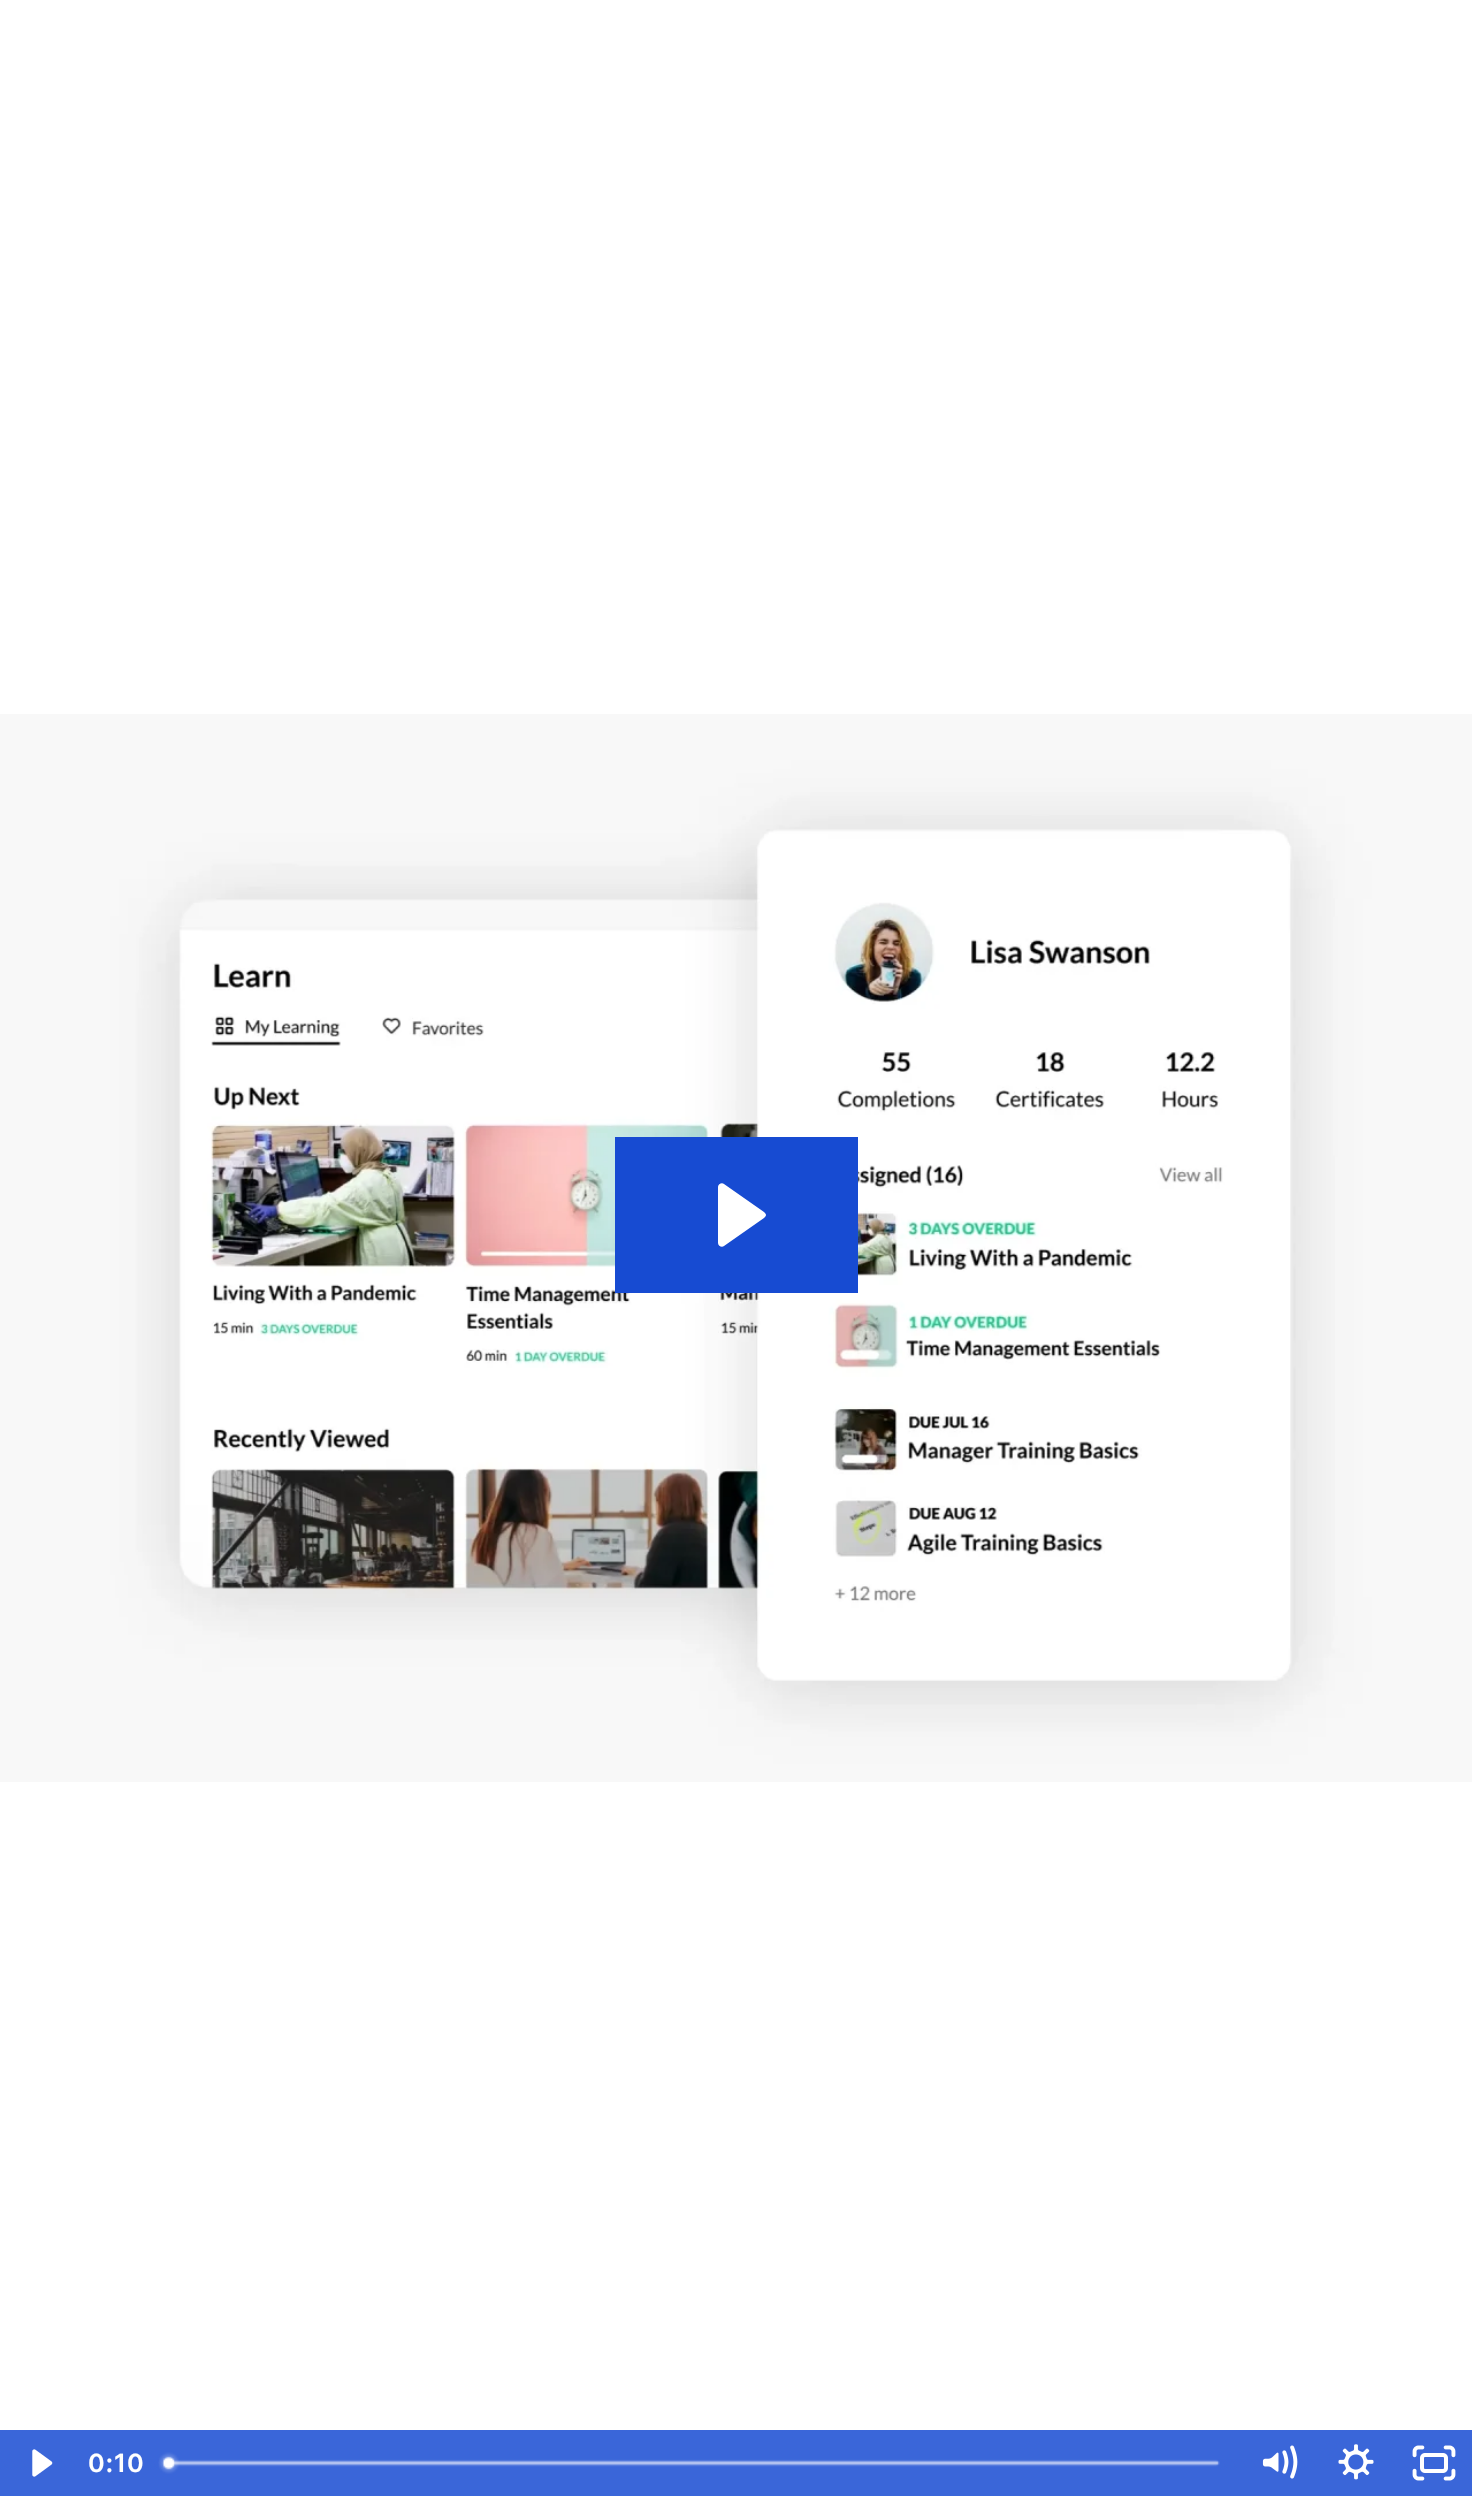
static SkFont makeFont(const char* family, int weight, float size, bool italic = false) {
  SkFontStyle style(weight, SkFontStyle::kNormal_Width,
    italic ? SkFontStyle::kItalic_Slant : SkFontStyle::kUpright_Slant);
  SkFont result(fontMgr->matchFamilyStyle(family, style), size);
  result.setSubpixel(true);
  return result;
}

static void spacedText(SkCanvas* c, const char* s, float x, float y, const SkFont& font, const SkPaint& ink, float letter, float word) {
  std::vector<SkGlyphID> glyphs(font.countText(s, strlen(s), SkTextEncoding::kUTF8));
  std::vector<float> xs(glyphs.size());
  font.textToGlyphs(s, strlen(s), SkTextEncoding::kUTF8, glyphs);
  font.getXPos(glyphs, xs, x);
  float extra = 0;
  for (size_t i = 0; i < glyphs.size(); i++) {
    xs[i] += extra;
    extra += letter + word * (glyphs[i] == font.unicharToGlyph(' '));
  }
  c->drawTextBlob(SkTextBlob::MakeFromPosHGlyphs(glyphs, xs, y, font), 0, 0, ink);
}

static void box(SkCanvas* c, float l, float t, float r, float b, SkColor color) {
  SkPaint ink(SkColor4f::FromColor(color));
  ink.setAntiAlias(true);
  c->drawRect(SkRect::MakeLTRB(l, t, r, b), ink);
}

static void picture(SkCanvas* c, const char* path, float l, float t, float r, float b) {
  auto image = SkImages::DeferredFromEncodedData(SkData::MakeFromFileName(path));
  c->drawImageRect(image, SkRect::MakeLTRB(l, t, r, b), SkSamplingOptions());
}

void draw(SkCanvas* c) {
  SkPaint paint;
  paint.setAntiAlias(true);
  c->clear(0xffffffff);
  picture(c, "img_01.png", 0, 714, 1472, 1782);
  box(c, 615, 1137, 858, 1293, 0xff174bd2);
  paint.setColor(0xffffffff);
  c->drawPath(SkPathBuilder(SkPathFillType::kEvenOdd).moveTo(724, 1184).cubicTo(722, 1182, 718, 1184, 718, 1187).lineTo(718, 1243).cubicTo(718, 1246, 722, 1248, 724, 1246).lineTo(764, 1218).cubicTo(765, 1217, 766, 1216, 766, 1215).cubicTo(766, 1214, 765, 1213, 764, 1212).close().detach(), paint);
  box(c, 0, 2430, 1472, 2496, 0xff3a66d9);
  picture(c, "img_02.png", 32, 2449, 53, 2477);
  SkFont face1 = makeFont("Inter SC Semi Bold", 600, 25);
  spacedText(c, "0:10", 88, 2472, face1, paint, 1, 0);
  picture(c, "img_03.png", 158, 2452, 1220, 2474);
  picture(c, "img_04.png", 1262, 2445, 1298, 2479);
  picture(c, "img_05.png", 1338, 2444, 1374, 2480);
  picture(c, "img_06.png", 1412, 2445, 1456, 2481);
}
